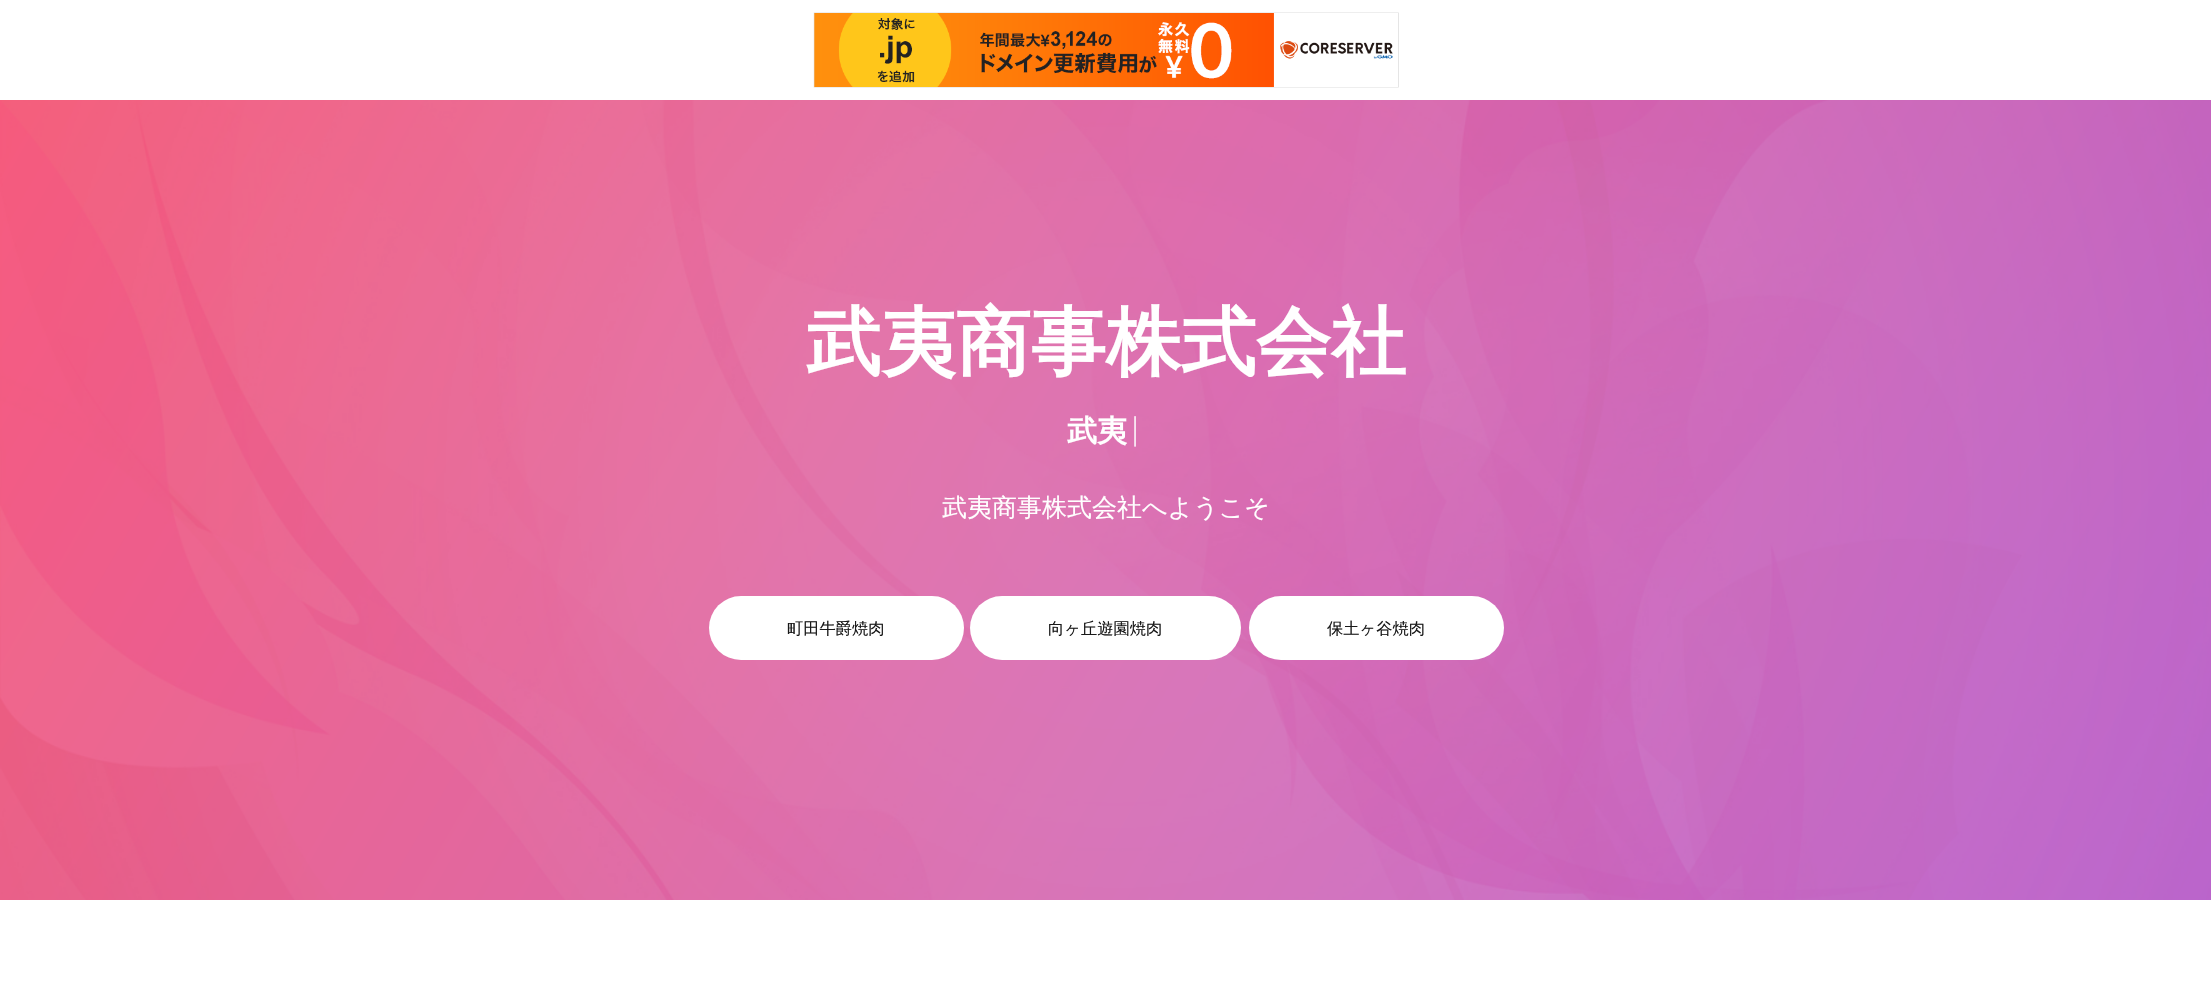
static SkFont makeFont(const char* family, int weight, float size, bool italic = false) {
  SkFontStyle style(weight, SkFontStyle::kNormal_Width,
    italic ? SkFontStyle::kItalic_Slant : SkFontStyle::kUpright_Slant);
  SkFont result(fontMgr->matchFamilyStyle(family, style), size);
  result.setSubpixel(true);
  return result;
}

static void text(SkCanvas* c, const char* s, float x, float y, const SkFont& font, SkColor color) {
  SkPaint ink(SkColor4f::FromColor(color));
  ink.setAntiAlias(true);
  c->drawString(s, x, y, font, ink);
}

static void roundBox(SkCanvas* c, float l, float t, float r, float b, float radius, SkColor color) {
  SkPaint ink(SkColor4f::FromColor(color));
  ink.setAntiAlias(true);
  c->drawRoundRect(SkRect::MakeLTRB(l, t, r, b), radius, radius, ink);
}

static void picture(SkCanvas* c, const char* path, float l, float t, float r, float b) {
  auto image = SkImages::DeferredFromEncodedData(SkData::MakeFromFileName(path));
  c->drawImageRect(image, SkRect::MakeLTRB(l, t, r, b), SkSamplingOptions());
}

void draw(SkCanvas* c) {
  SkPaint paint;
  paint.setAntiAlias(true);
  c->clear(0xffffffff);
  picture(c, "img_01.png", 813, 12, 1399, 88);
  picture(c, "img_02.png", 0, 100, 2211, 900);
  SkFont face1 = makeFont("WenQuanYi Zen Hei", 700, 75);
  text(c, "武夷商事株式会社", 806, 368, face1, 0xffffffff);
  SkFont face2 = makeFont("WenQuanYi Zen Hei", 700, 30);
  text(c, "武夷", 1067, 441, face2, 0xffffffff);
  SkFont face3 = makeFont("Open Sans", 300, 30);
  text(c, "|", 1127, 439, face3, 0xffffffff);
  SkFont face4 = makeFont("WenQuanYi Zen Hei", 500, 25);
  text(c, "武夷商事株式会社へようこそ", 942, 516, face4, 0xffffffff);
  roundBox(c, 709, 596, 964, 660, 32, 0xffffffff);
  SkFont face5 = makeFont("WenQuanYi Zen Hei", 500, 16.25f);
  text(c, "町田牛爵焼肉", 787, 634, face5, 0xff191919);
  roundBox(c, 970, 596, 1241, 660, 32, 0xffffffff);
  text(c, "向ヶ丘遊園焼肉", 1048, 634, face5, 0xff191919);
  roundBox(c, 1249, 596, 1504, 660, 32, 0xffffffff);
  text(c, "保土ヶ谷焼肉", 1327, 634, face5, 0xff191919);
}
